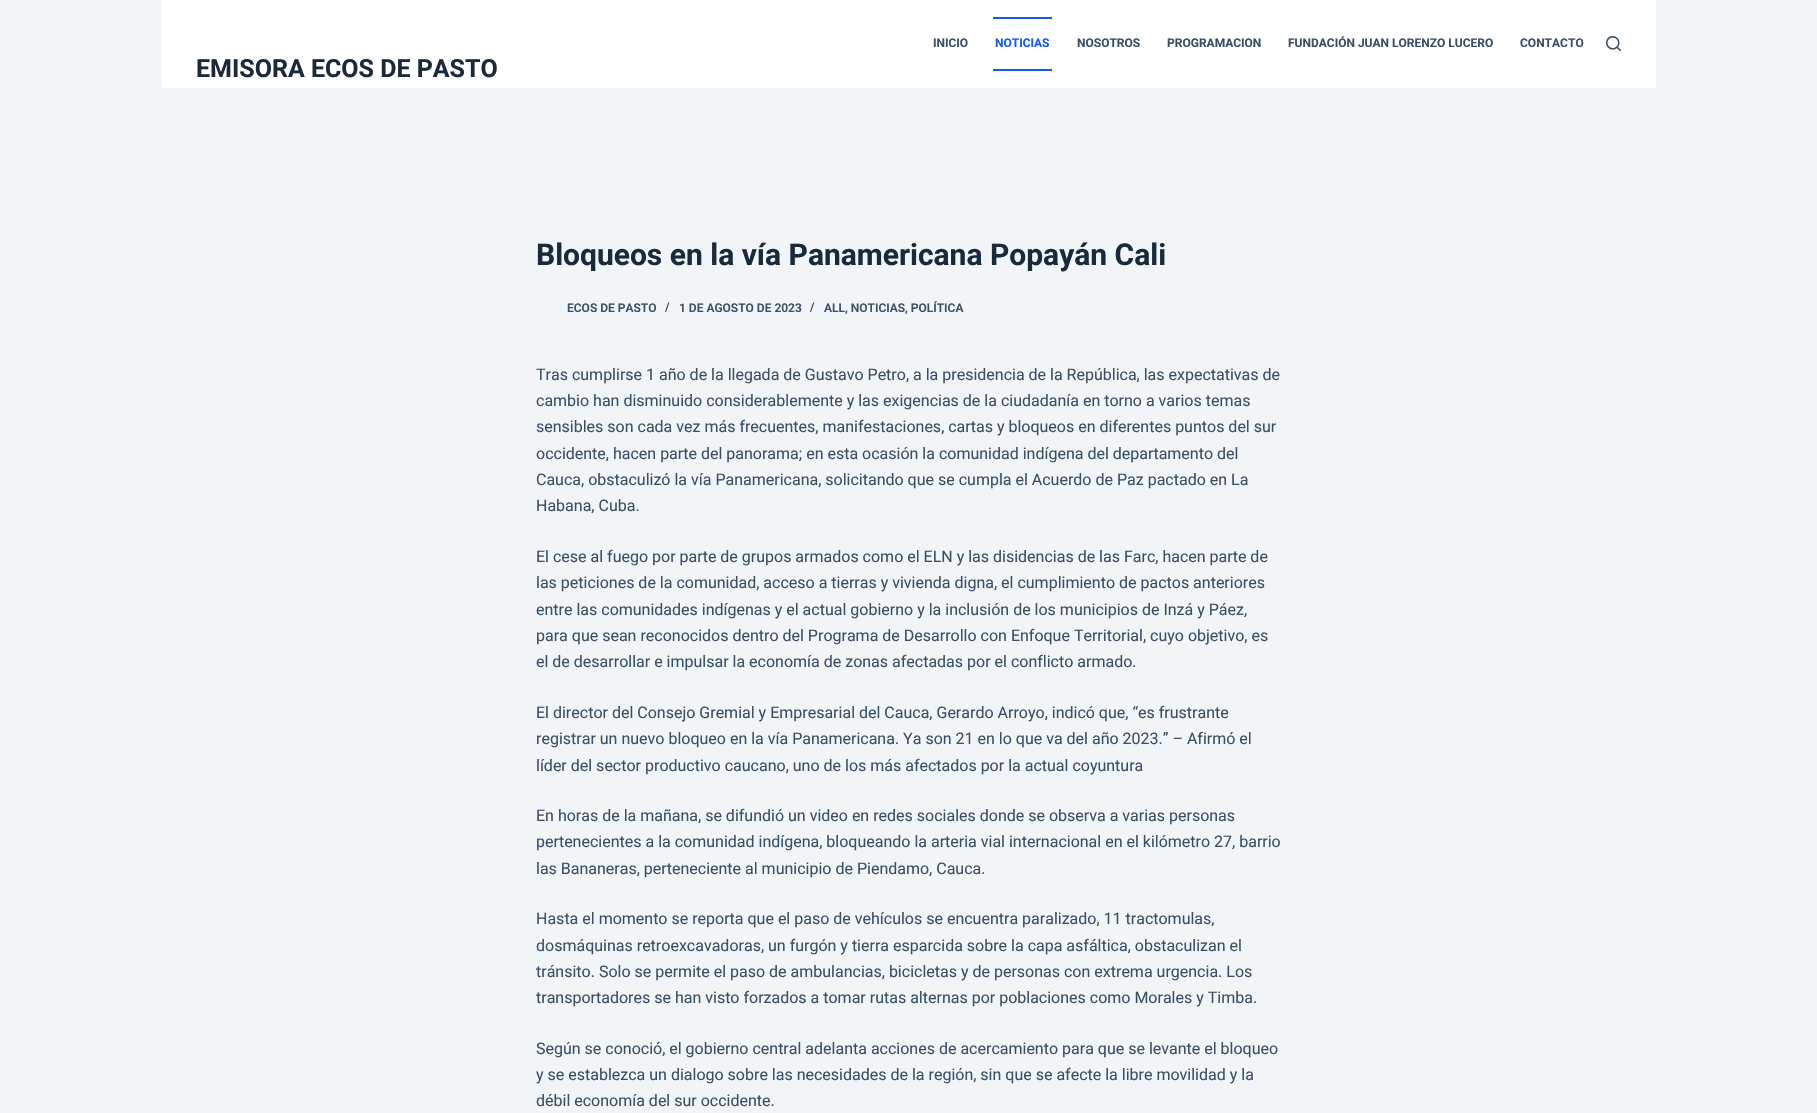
static SkFont makeFont(const char* family, int weight, float size, bool italic = false) {
  SkFontStyle style(weight, SkFontStyle::kNormal_Width,
    italic ? SkFontStyle::kItalic_Slant : SkFontStyle::kUpright_Slant);
  SkFont result(fontMgr->matchFamilyStyle(family, style), size);
  result.setSubpixel(true);
  return result;
}

static void text(SkCanvas* c, const char* s, float x, float y, const SkFont& font, SkColor color) {
  SkPaint ink(SkColor4f::FromColor(color));
  ink.setAntiAlias(true);
  c->drawString(s, x, y, font, ink);
}

static void box(SkCanvas* c, float l, float t, float r, float b, SkColor color) {
  SkPaint ink(SkColor4f::FromColor(color));
  ink.setAntiAlias(true);
  c->drawRect(SkRect::MakeLTRB(l, t, r, b), ink);
}

static void picture(SkCanvas* c, const char* path, float l, float t, float r, float b) {
  auto image = SkImages::DeferredFromEncodedData(SkData::MakeFromFileName(path));
  c->drawImageRect(image, SkRect::MakeLTRB(l, t, r, b), SkSamplingOptions());
}

void draw(SkCanvas* c) {
  SkPaint paint;
  paint.setAntiAlias(true);
  c->clear(0xfff2f5f7);
  box(c, 161, 0, 1656, 88, 0xffffffff);
  SkFont face1 = makeFont("Roboto", 700, 12);
  text(c, "INICIO", 933, 47, face1, 0xff3a4f66);
  box(c, 993, 17, 1052, 19, 0xff1559ed);
  text(c, "NOTICIAS", 995, 47, face1, 0xff1559ed);
  box(c, 993, 69, 1052, 71, 0xff1559ed);
  text(c, "NOSOTROS", 1077, 47, face1, 0xff3a4f66);
  text(c, "PROGRAMACION", 1167, 47, face1, 0xff3a4f66);
  text(c, "FUNDACIÓN JUAN LORENZO LUCERO", 1288, 47, face1, 0xff3a4f66);
  text(c, "CONTACTO", 1520, 47, face1, 0xff3a4f66);
  picture(c, "img_01.png", 1606, 36, 1621, 51);
  SkFont face2 = makeFont("Roboto", 700, 25);
  text(c, "EMISORA ECOS DE PASTO", 196, 77, face2, 0xff192a3d);
  SkFont face3 = makeFont("Roboto", 700, 30);
  text(c, "Bloqueos en la vía Panamericana Popayán Cali", 536, 265, face3, 0xff192a3d);
  SkFont face4 = makeFont("Roboto", 600, 12);
  text(c, "ECOS DE PASTO", 567, 312, face4, 0xff3a4f66);
  text(c, "/", 665, 311, face4, 0xff3a4f66);
  text(c, "1 DE AGOSTO DE 2023", 679, 312, face4, 0xff3a4f66);
  text(c, "/", 810, 311, face4, 0xff3a4f66);
  text(c, "ALL, NOTICIAS, POLÍTICA", 824, 312, face4, 0xff3a4f66);
  SkFont face5 = makeFont("Roboto", 400, 16);
  text(c, "Tras cumplirse 1 año de la llegada de Gustavo Petro, a la presidencia de la República, las expectativas de", 536, 380, face5, 0xff3a4f66);
  text(c, "cambio han disminuido considerablemente y las exigencias de la ciudadanía en torno a varios temas", 536, 406, face5, 0xff3a4f66);
  text(c, "sensibles son cada vez más frecuentes, manifestaciones, cartas y bloqueos en diferentes puntos del sur", 536, 432, face5, 0xff3a4f66);
  text(c, "occidente, hacen parte del panorama; en esta ocasión la comunidad indígena del departamento del", 536, 459, face5, 0xff3a4f66);
  text(c, "Cauca, obstaculizó la vía Panamericana, solicitando que se cumpla el Acuerdo de Paz pactado en La", 536, 485, face5, 0xff3a4f66);
  text(c, "Habana, Cuba.", 536, 511, face5, 0xff3a4f66);
  text(c, "El cese al fuego por parte de grupos armados como el ELN y las disidencias de las Farc, hacen parte de", 536, 562, face5, 0xff3a4f66);
  text(c, "las peticiones de la comunidad, acceso a tierras y vivienda digna, el cumplimiento de pactos anteriores", 536, 588, face5, 0xff3a4f66);
  text(c, "entre las comunidades indígenas y el actual gobierno y la inclusión de los municipios de Inzá y Páez,", 536, 615, face5, 0xff3a4f66);
  text(c, "para que sean reconocidos dentro del Programa de Desarrollo con Enfoque Territorial, cuyo objetivo, es", 536, 641, face5, 0xff3a4f66);
  text(c, "el de desarrollar e impulsar la economía de zonas afectadas por el conflicto armado.", 536, 667, face5, 0xff3a4f66);
  text(c, "El director del Consejo Gremial y Empresarial del Cauca, Gerardo Arroyo, indicó que, “es frustrante", 536, 718, face5, 0xff3a4f66);
  text(c, "registrar un nuevo bloqueo en la vía Panamericana. Ya son 21 en lo que va del año 2023.” – Afirmó el", 536, 744, face5, 0xff3a4f66);
  text(c, "líder del sector productivo caucano, uno de los más afectados por la actual coyuntura", 536, 771, face5, 0xff3a4f66);
  text(c, "En horas de la mañana, se difundió un video en redes sociales donde se observa a varias personas", 536, 821, face5, 0xff3a4f66);
  text(c, "pertenecientes a la comunidad indígena, bloqueando la arteria vial internacional en el kilómetro 27, barrio", 536, 847, face5, 0xff3a4f66);
  text(c, "las Bananeras, perteneciente al municipio de Piendamo, Cauca.", 536, 874, face5, 0xff3a4f66);
  text(c, "Hasta el momento se reporta que el paso de vehículos se encuentra paralizado, 11 tractomulas,", 536, 924, face5, 0xff3a4f66);
  text(c, "dosmáquinas retroexcavadoras, un furgón y tierra esparcida sobre la capa asfáltica, obstaculizan el", 536, 951, face5, 0xff3a4f66);
  text(c, "tránsito. Solo se permite el paso de ambulancias, bicicletas y de personas con extrema urgencia. Los", 536, 977, face5, 0xff3a4f66);
  text(c, "transportadores se han visto forzados a tomar rutas alternas por poblaciones como Morales y Timba.", 536, 1003, face5, 0xff3a4f66);
  text(c, "Según se conoció, el gobierno central adelanta acciones de acercamiento para que se levante el bloqueo", 536, 1054, face5, 0xff3a4f66);
  text(c, "y se establezca un dialogo sobre las necesidades de la región, sin que se afecte la libre movilidad y la", 536, 1080, face5, 0xff3a4f66);
  text(c, "débil economía del sur occidente.", 536, 1106, face5, 0xff3a4f66);
}
